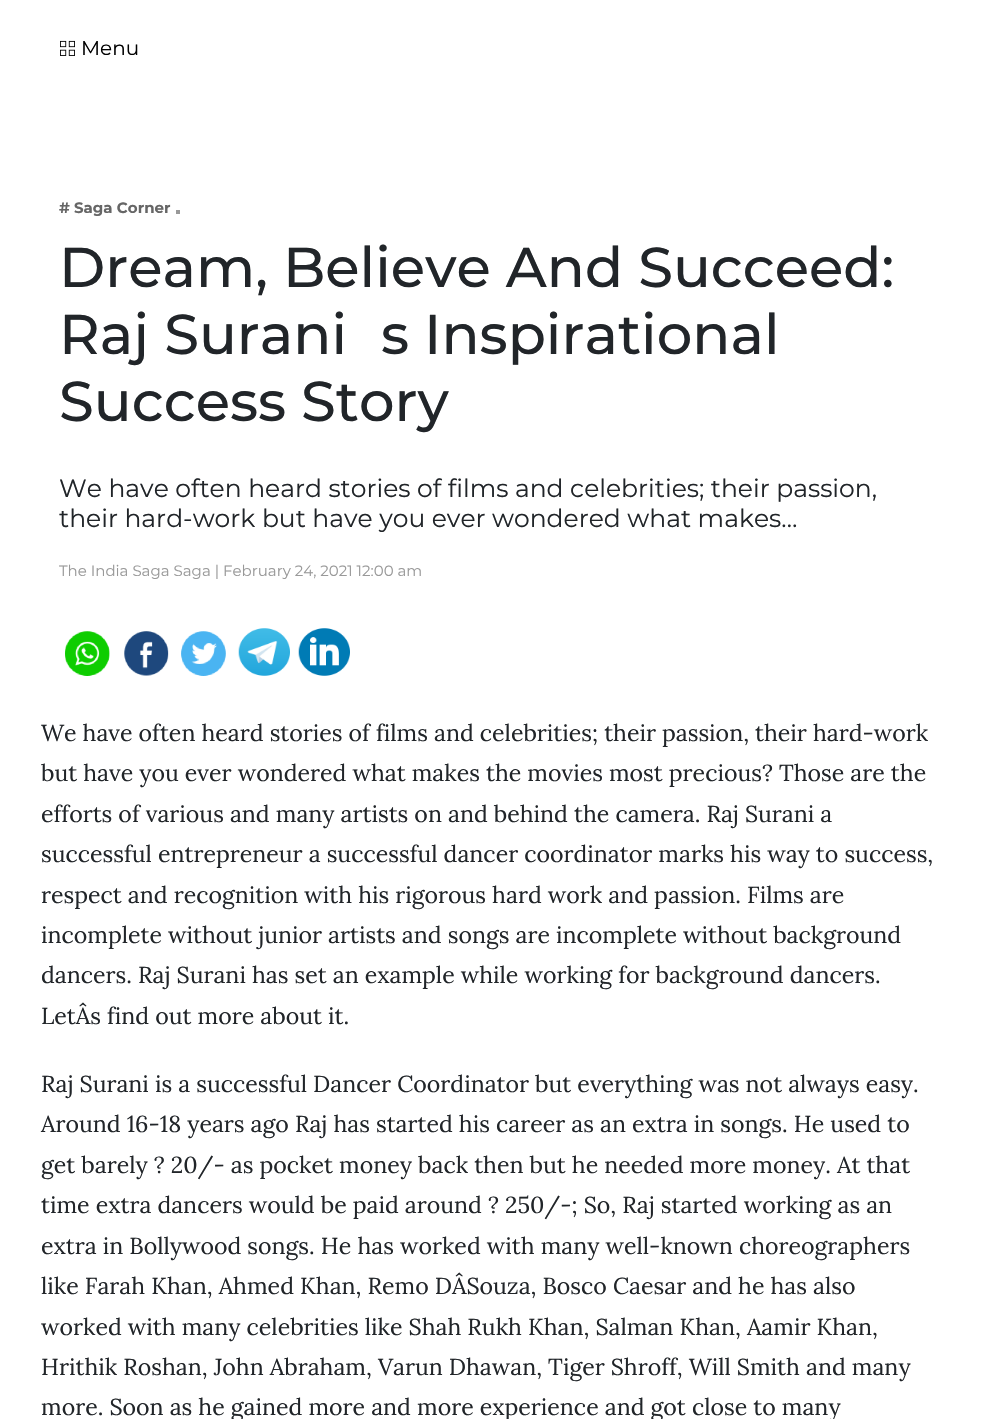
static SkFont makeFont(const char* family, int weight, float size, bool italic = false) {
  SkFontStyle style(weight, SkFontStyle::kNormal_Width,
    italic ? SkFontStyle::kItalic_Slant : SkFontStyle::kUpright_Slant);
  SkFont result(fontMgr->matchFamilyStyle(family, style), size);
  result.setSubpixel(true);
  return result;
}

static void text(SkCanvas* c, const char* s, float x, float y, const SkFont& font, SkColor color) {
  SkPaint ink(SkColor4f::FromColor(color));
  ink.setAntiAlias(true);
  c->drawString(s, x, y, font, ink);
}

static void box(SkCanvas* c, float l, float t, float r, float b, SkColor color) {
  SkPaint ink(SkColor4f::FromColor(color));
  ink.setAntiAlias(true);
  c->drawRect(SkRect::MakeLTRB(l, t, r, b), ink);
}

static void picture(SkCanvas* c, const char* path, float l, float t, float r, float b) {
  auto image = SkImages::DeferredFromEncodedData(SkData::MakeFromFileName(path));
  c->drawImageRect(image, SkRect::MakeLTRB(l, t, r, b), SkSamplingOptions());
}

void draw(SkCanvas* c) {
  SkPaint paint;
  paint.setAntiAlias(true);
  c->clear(0xffffffff);
  picture(c, "img_01.png", 60, 40, 75, 56);
  SkFont face1 = makeFont("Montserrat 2", 100, 20);
  text(c, "Menu", 81, 55, face1, 0xff000000);
  SkFont face2 = makeFont("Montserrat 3", 100, 15);
  text(c, "# Saga Corner", 59, 213, face2, 0xff666666);
  box(c, 176, 210, 180, 214, 0xff999999);
  SkFont face3 = makeFont("Montserrat", 100, 56);
  text(c, "Dream, Believe And Succeed:", 59, 287, face3, 0xff212529);
  text(c, "Raj Surani", 59, 354, face3, 0xff212529);
  text(c, "s Inspirational", 381, 354, face3, 0xff212529);
  text(c, "Success Story", 59, 421, face3, 0xff212529);
  SkFont face4 = makeFont("Montserrat 2", 100, 25);
  text(c, "We have often heard stories of films and celebrities; their passion,", 59, 497, face4, 0xff212529);
  text(c, "their hard-work but have you ever wondered what makes…", 59, 527, face4, 0xff212529);
  SkFont face5 = makeFont("Montserrat 2", 100, 15);
  text(c, "The India Saga Saga | February 24, 2021 12:00 am", 59, 576, face5, 0xff999999);
  picture(c, "img_02.png", 65, 631, 110, 676);
  picture(c, "img_03.png", 124, 631, 169, 676);
  picture(c, "img_04.png", 181, 631, 226, 676);
  picture(c, "img_05.png", 238, 628, 290, 676);
  picture(c, "img_06.png", 298, 628, 350, 676);
  SkFont face6 = makeFont("Lora", 400, 23.1f);
  text(c, "We have often heard stories of films and celebrities; their passion, their hard-work", 41, 741, face6, 0xff212529);
  text(c, "but have you ever wondered what makes the movies most precious? Those are the", 41, 781, face6, 0xff212529);
  text(c, "efforts of various and many artists on and behind the camera. Raj Surani a", 41, 822, face6, 0xff212529);
  text(c, "successful entrepreneur a successful dancer coordinator marks his way to success,", 41, 862, face6, 0xff212529);
  text(c, "respect and recognition with his rigorous hard work and passion. Films are", 41, 903, face6, 0xff212529);
  text(c, "incomplete without junior artists and songs are incomplete without background", 41, 943, face6, 0xff212529);
  text(c, "dancers. Raj Surani has set an example while working for background dancers.", 41, 983, face6, 0xff212529);
  text(c, "LetÂs find out more about it.", 41, 1024, face6, 0xff212529);
  text(c, "Raj Surani is a successful Dancer Coordinator but everything was not always easy.", 41, 1092, face6, 0xff212529);
  text(c, "Around 16-18 years ago Raj has started his career as an extra in songs. He used to", 41, 1132, face6, 0xff212529);
  text(c, "get barely ? 20/- as pocket money back then but he needed more money. At that", 41, 1173, face6, 0xff212529);
  text(c, "time extra dancers would be paid around ? 250/-; So, Raj started working as an", 41, 1213, face6, 0xff212529);
  text(c, "extra in Bollywood songs. He has worked with many well-known choreographers", 41, 1254, face6, 0xff212529);
  text(c, "like Farah Khan, Ahmed Khan, Remo DÂSouza, Bosco Caesar and he has also", 41, 1294, face6, 0xff212529);
  text(c, "worked with many celebrities like Shah Rukh Khan, Salman Khan, Aamir Khan,", 41, 1335, face6, 0xff212529);
  text(c, "Hrithik Roshan, John Abraham, Varun Dhawan, Tiger Shroff, Will Smith and many", 41, 1375, face6, 0xff212529);
  text(c, "more. Soon as he gained more and more experience and got close to many", 41, 1415, face6, 0xff212529);
}
